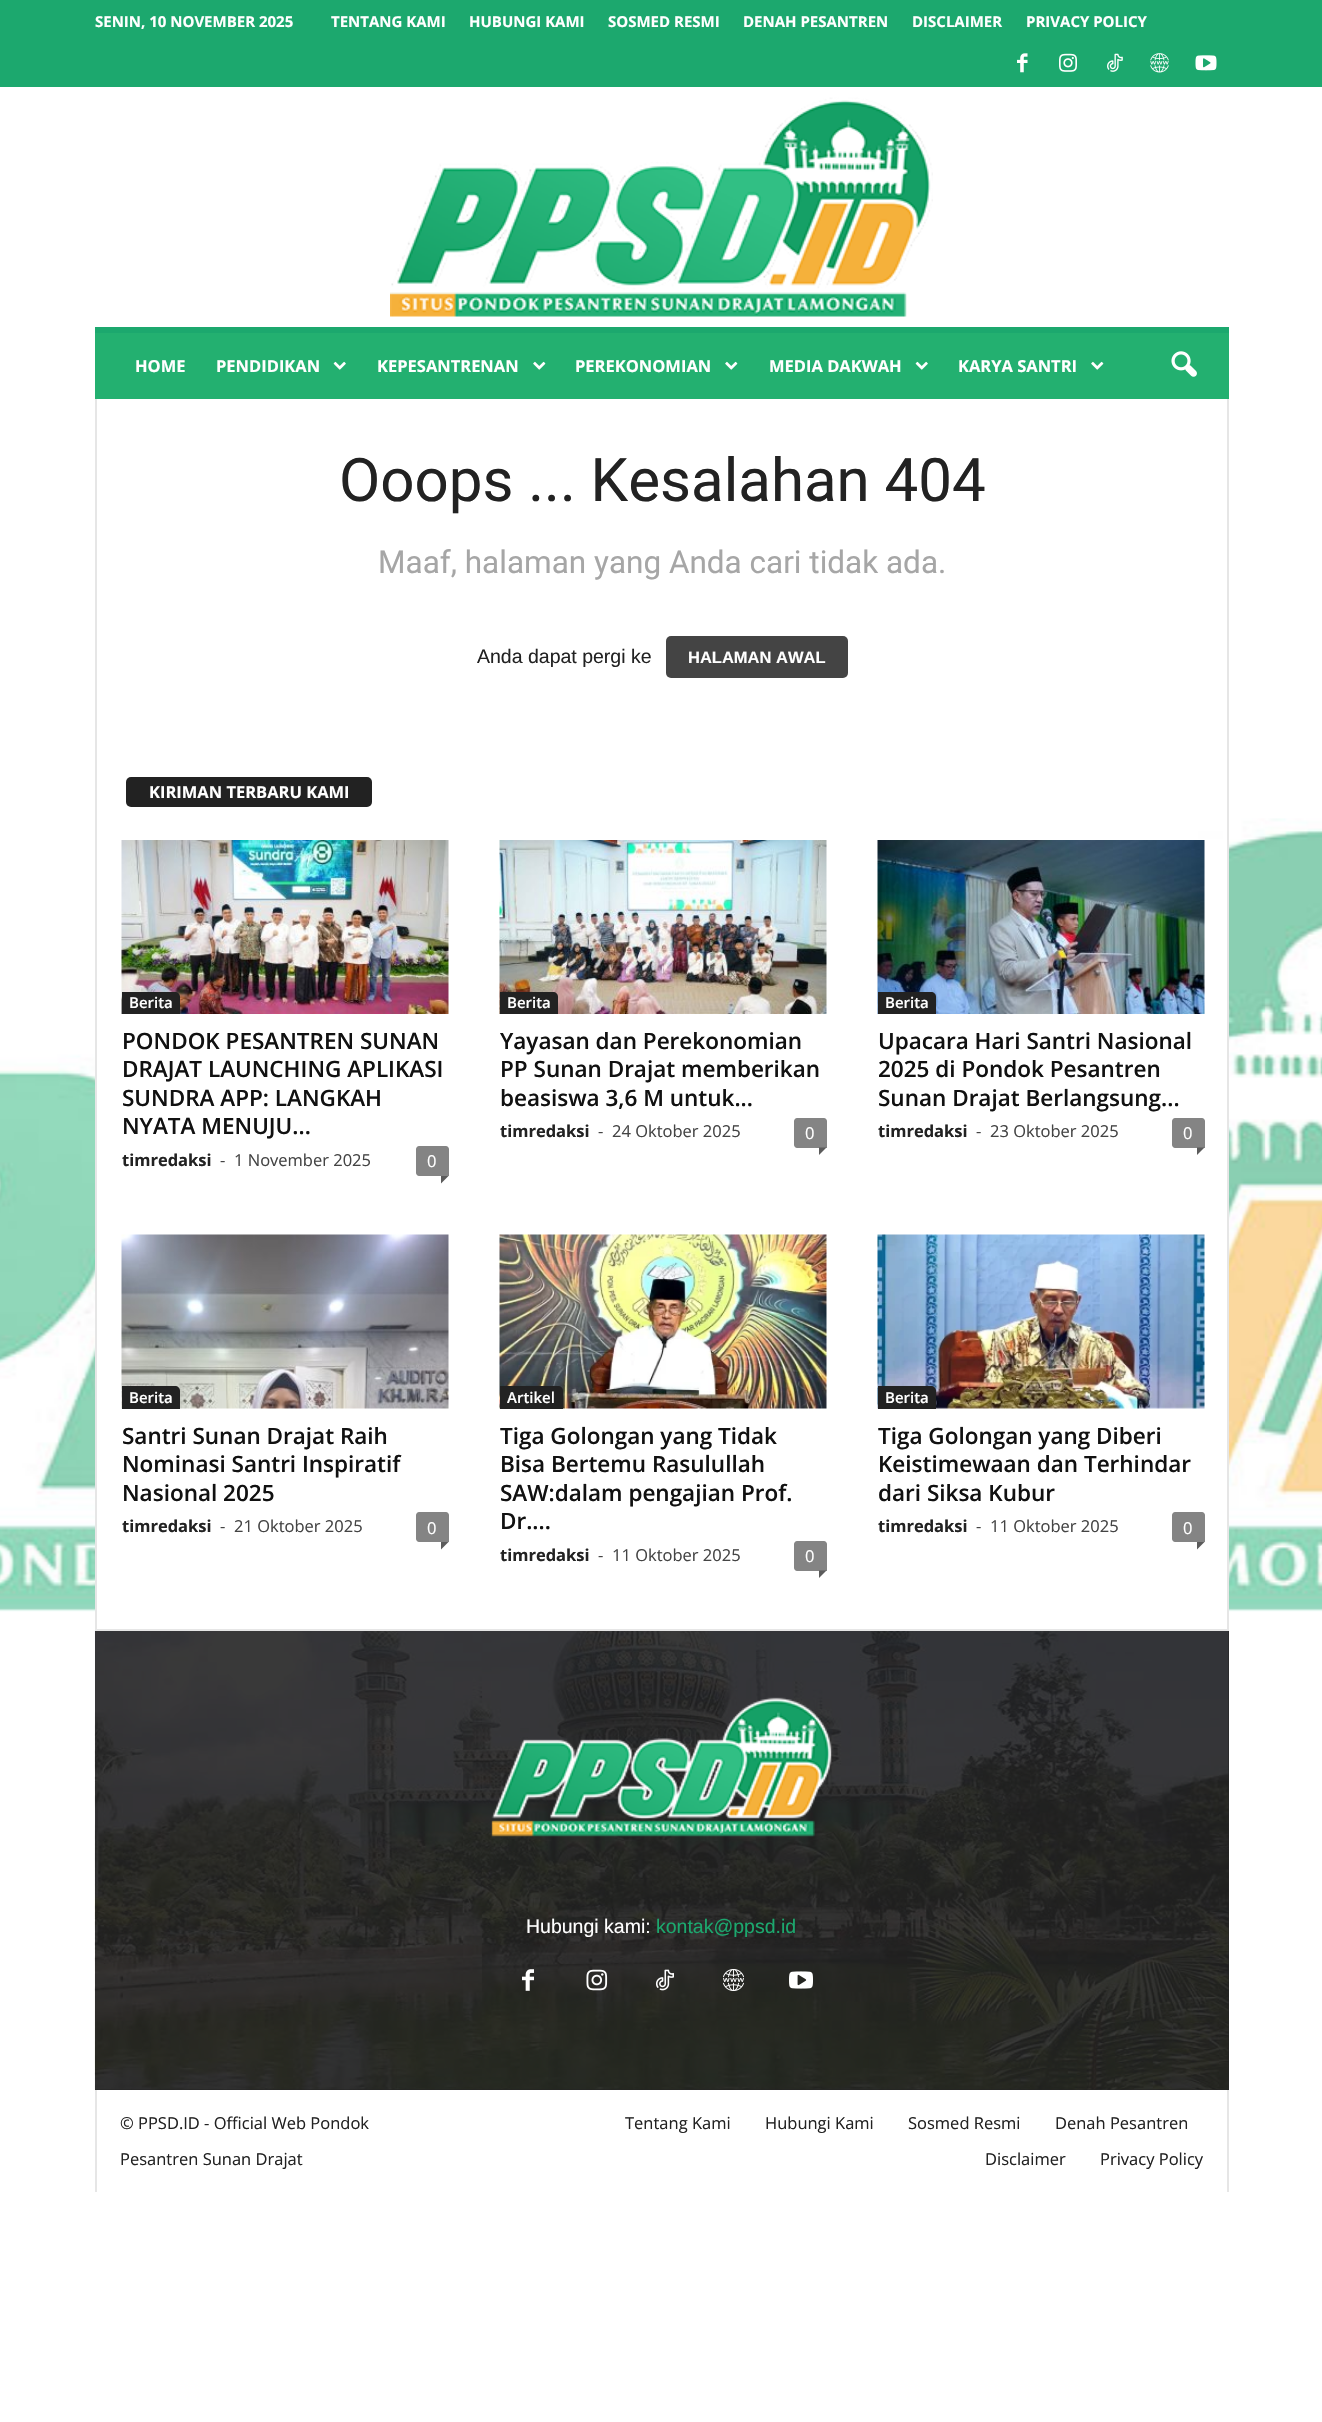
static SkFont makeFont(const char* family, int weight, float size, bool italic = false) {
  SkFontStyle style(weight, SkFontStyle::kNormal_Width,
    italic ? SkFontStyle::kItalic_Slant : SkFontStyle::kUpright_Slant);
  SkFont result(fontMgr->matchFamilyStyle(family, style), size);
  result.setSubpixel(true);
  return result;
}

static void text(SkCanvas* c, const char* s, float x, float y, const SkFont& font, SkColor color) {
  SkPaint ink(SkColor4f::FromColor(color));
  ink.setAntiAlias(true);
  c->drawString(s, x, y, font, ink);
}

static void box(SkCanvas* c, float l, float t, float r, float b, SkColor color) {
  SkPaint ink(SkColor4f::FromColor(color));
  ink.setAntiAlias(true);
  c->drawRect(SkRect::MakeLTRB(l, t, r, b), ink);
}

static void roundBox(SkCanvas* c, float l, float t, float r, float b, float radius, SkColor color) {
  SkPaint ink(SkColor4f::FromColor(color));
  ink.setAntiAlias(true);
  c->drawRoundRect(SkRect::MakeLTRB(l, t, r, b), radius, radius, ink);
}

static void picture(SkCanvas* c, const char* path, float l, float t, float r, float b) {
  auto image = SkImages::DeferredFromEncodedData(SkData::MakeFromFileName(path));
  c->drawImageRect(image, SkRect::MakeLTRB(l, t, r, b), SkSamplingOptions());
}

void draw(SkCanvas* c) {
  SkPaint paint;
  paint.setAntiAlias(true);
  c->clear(0xffffffff);
  box(c, 0, 0, 1322, 87, 0xff1ca86e);
  SkFont face1 = makeFont("Open Sans", 700, 15);
  text(c, "SENIN, 10 NOVEMBER 2025", 95, 27, face1, 0xffffffff);
  text(c, "TENTANG KAMI", 331, 27, face1, 0xffffffff);
  text(c, "HUBUNGI KAMI", 469, 27, face1, 0xffffffff);
  text(c, "SOSMED RESMI", 608, 27, face1, 0xffffffff);
  text(c, "DENAH PESANTREN", 743, 27, face1, 0xffffffff);
  text(c, "DISCLAIMER", 912, 27, face1, 0xffffffff);
  text(c, "PRIVACY POLICY", 1026, 27, face1, 0xffffffff);
  picture(c, "img_01.png", 1017, 53, 1028, 73);
  picture(c, "img_02.png", 1059, 53, 1077, 72);
  picture(c, "img_03.png", 1107, 53, 1123, 72);
  picture(c, "img_04.png", 1150, 53, 1169, 73);
  picture(c, "img_05.png", 1195, 55, 1217, 71);
  picture(c, "img_06.png", 390, 97, 933, 317);
  box(c, 95, 333, 1229, 399, 0xff23b070);
  box(c, 95, 327, 1229, 333, 0xff1ca86e);
  SkFont face2 = makeFont("Open Sans", 700, 16.5f);
  text(c, "HOME", 135, 372, face2, 0xffffffff);
  text(c, "PENDIDIKAN", 216, 372, face2, 0xffffffff);
  picture(c, "img_07.png", 333, 361, 346, 370);
  text(c, "KEPESANTRENAN", 377, 372, face2, 0xffffffff);
  picture(c, "img_08.png", 533, 361, 546, 370);
  text(c, "PEREKONOMIAN", 575, 372, face2, 0xffffffff);
  picture(c, "img_08.png", 725, 361, 738, 370);
  text(c, "MEDIA DAKWAH", 769, 372, face2, 0xffffffff);
  picture(c, "img_07.png", 915, 361, 928, 370);
  text(c, "KARYA SANTRI", 958, 372, face2, 0xffffffff);
  picture(c, "img_08.png", 1091, 361, 1104, 370);
  picture(c, "img_09.png", 1171, 351, 1197, 377);
  picture(c, "img_23.png", 0, 818, 1322, 1612);
  box(c, 97, 839, 1227, 1612, 0xffffffff);
  box(c, 95, 1631, 1229, 2090, 0xff222222);
  picture(c, "img_16.png", 94, 1630, 1229, 2090);
  box(c, 95, 1629, 1229, 1631, 0xffe6e6e6);
  box(c, 95, 399, 97, 1629, 0xffe6e6e6);
  SkFont face3 = makeFont("Roboto", 400, 60);
  text(c, "Ooops ... Kesalahan 404", 339, 501, face3, 0xff222222);
  SkFont face4 = makeFont("Roboto", 400, 31.5f);
  text(c, "Maaf, halaman yang Anda cari tidak ada.", 378, 573, face4, 0xffa6a6a6);
  SkFont face5 = makeFont("Liberation Sans", 400, 19.5f);
  text(c, "Anda dapat pergi ke", 477, 663, face5, 0xff222222);
  roundBox(c, 666, 636, 848, 678, 5, 0xff444444);
  SkFont face6 = makeFont("Liberation Sans", 700, 16.5f);
  text(c, "HALAMAN AWAL", 688, 663, face6, 0xffffffff);
  roundBox(c, 126, 777, 372, 807, 5, 0xff222222);
  text(c, "KIRIMAN TERBARU KAMI", 149, 798, face2, 0xffffffff);
  picture(c, "img_10.png", 121, 840, 449, 1014);
  paint.setColor(0xff222222);
  c->drawPath(SkPathBuilder().moveTo(122, 992).lineTo(175, 992).cubicTo(178, 992, 180, 994, 180, 997).lineTo(180, 1014).lineTo(122, 1014).close().detach(), paint);
  SkFont face7 = makeFont("Open Sans", 600, 15);
  text(c, "Berita", 129, 1008, face7, 0xffffffff);
  SkFont face8 = makeFont("Open Sans", 600, 22.5f);
  text(c, "PONDOK PESANTREN SUNAN", 122, 1049, face8, 0xff111111);
  text(c, "DRAJAT LAUNCHING APLIKASI", 122, 1077, face8, 0xff111111);
  text(c, "SUNDRA APP: LANGKAH", 122, 1106, face8, 0xff111111);
  text(c, "NYATA MENUJU...", 122, 1134, face8, 0xff111111);
  text(c, "timredaksi", 122, 1166, face2, 0xff222222);
  SkFont face9 = makeFont("Open Sans", 400, 16.5f);
  text(c, "-", 220, 1166, face9, 0xff444444);
  text(c, "1 November 2025", 234, 1166, face9, 0xff444444);
  paint.setColor(0xff848484);
  c->drawPath(SkPathBuilder().moveTo(419, 1146).lineTo(446, 1146).cubicTo(447.5f, 1146, 449, 1147.5f, 449, 1149).lineTo(449, 1176).lineTo(419, 1176).cubicTo(417.5f, 1176, 416, 1174.5f, 416, 1173).lineTo(416, 1149).cubicTo(416, 1147.5f, 417.5f, 1146, 419, 1146).close().detach(), paint);
  text(c, "0", 427, 1167, face9, 0xffffffff);
  paint.setColor(0xff5b5b5b);
  c->drawPath(SkPathBuilder().moveTo(441, 1176).lineTo(448.5f, 1176).lineTo(441, 1183.5f).close().detach(), paint);
  picture(c, "img_11.png", 499, 840, 827, 1014);
  paint.setColor(0xff222222);
  c->drawPath(SkPathBuilder().moveTo(500, 992).lineTo(553, 992).cubicTo(556, 992, 558, 994, 558, 997).lineTo(558, 1014).lineTo(500, 1014).close().detach(), paint);
  text(c, "Berita", 507, 1008, face7, 0xffffffff);
  text(c, "Yayasan dan Perekonomian", 500, 1049, face8, 0xff111111);
  text(c, "PP Sunan Drajat memberikan", 500, 1077, face8, 0xff111111);
  text(c, "beasiswa 3,6 M untuk...", 500, 1106, face8, 0xff111111);
  text(c, "timredaksi", 500, 1137, face2, 0xff222222);
  text(c, "-", 598, 1137, face9, 0xff444444);
  text(c, "24 Oktober 2025", 612, 1137, face9, 0xff444444);
  paint.setColor(0xff848484);
  c->drawPath(SkPathBuilder().moveTo(797, 1118).lineTo(824, 1118).cubicTo(825.5f, 1118, 827, 1119.5f, 827, 1121).lineTo(827, 1148).lineTo(797, 1148).cubicTo(795.5f, 1148, 794, 1146.5f, 794, 1145).lineTo(794, 1121).cubicTo(794, 1119.5f, 795.5f, 1118, 797, 1118).close().detach(), paint);
  text(c, "0", 805, 1139, face9, 0xffffffff);
  paint.setColor(0xff5b5b5b);
  c->drawPath(SkPathBuilder().moveTo(819, 1147.5f).lineTo(826.5f, 1147.5f).lineTo(819, 1155).close().detach(), paint);
  picture(c, "img_12.png", 877, 840, 1205, 1014);
  paint.setColor(0xff222222);
  c->drawPath(SkPathBuilder().moveTo(878, 992).lineTo(931, 992).cubicTo(934, 992, 936, 994, 936, 997).lineTo(936, 1014).lineTo(878, 1014).close().detach(), paint);
  text(c, "Berita", 885, 1008, face7, 0xffffffff);
  text(c, "Upacara Hari Santri Nasional", 878, 1049, face8, 0xff111111);
  text(c, "2025 di Pondok Pesantren", 878, 1077, face8, 0xff111111);
  text(c, "Sunan Drajat Berlangsung...", 878, 1106, face8, 0xff111111);
  text(c, "timredaksi", 878, 1137, face2, 0xff222222);
  text(c, "-", 976, 1137, face9, 0xff444444);
  text(c, "23 Oktober 2025", 990, 1137, face9, 0xff444444);
  paint.setColor(0xff848484);
  c->drawPath(SkPathBuilder().moveTo(1175, 1118).lineTo(1202, 1118).cubicTo(1203.5f, 1118, 1205, 1119.5f, 1205, 1121).lineTo(1205, 1148).lineTo(1175, 1148).cubicTo(1173.5f, 1148, 1172, 1146.5f, 1172, 1145).lineTo(1172, 1121).cubicTo(1172, 1119.5f, 1173.5f, 1118, 1175, 1118).close().detach(), paint);
  text(c, "0", 1183, 1139, face9, 0xffffffff);
  paint.setColor(0xff5b5b5b);
  c->drawPath(SkPathBuilder().moveTo(1197, 1147.5f).lineTo(1204.5f, 1147.5f).lineTo(1197, 1155).close().detach(), paint);
  picture(c, "img_13.png", 121, 1234, 449, 1409);
  paint.setColor(0xff222222);
  c->drawPath(SkPathBuilder().moveTo(122, 1386).lineTo(175, 1386).cubicTo(178, 1386, 180, 1388, 180, 1391).lineTo(180, 1409).lineTo(122, 1409).close().detach(), paint);
  text(c, "Berita", 129, 1403, face7, 0xffffffff);
  text(c, "Santri Sunan Drajat Raih", 122, 1444, face8, 0xff111111);
  text(c, "Nominasi Santri Inspiratif", 122, 1472, face8, 0xff111111);
  text(c, "Nasional 2025", 122, 1501, face8, 0xff111111);
  text(c, "timredaksi", 122, 1532, face2, 0xff222222);
  text(c, "-", 220, 1532, face9, 0xff444444);
  text(c, "21 Oktober 2025", 234, 1532, face9, 0xff444444);
  paint.setColor(0xff848484);
  c->drawPath(SkPathBuilder().moveTo(419, 1512).lineTo(446, 1512).cubicTo(447.5f, 1512, 449, 1513.5f, 449, 1515).lineTo(449, 1542).lineTo(419, 1542).cubicTo(417.5f, 1542, 416, 1540.5f, 416, 1539).lineTo(416, 1515).cubicTo(416, 1513.5f, 417.5f, 1512, 419, 1512).close().detach(), paint);
  text(c, "0", 427, 1534, face9, 0xffffffff);
  paint.setColor(0xff5b5b5b);
  c->drawPath(SkPathBuilder().moveTo(441, 1542).lineTo(448.5f, 1542).lineTo(441, 1549.5f).close().detach(), paint);
  picture(c, "img_14.png", 499, 1234, 827, 1409);
  paint.setColor(0xff222222);
  c->drawPath(SkPathBuilder().moveTo(500, 1386).lineTo(558, 1386).cubicTo(561, 1386, 563, 1388, 563, 1391).lineTo(563, 1409).lineTo(500, 1409).close().detach(), paint);
  text(c, "Artikel", 507, 1403, face7, 0xffffffff);
  text(c, "Tiga Golongan yang Tidak", 500, 1444, face8, 0xff111111);
  text(c, "Bisa Bertemu Rasulullah", 500, 1472, face8, 0xff111111);
  text(c, "SAW:dalam pengajian Prof.", 500, 1501, face8, 0xff111111);
  text(c, "Dr....", 500, 1529, face8, 0xff111111);
  text(c, "timredaksi", 500, 1561, face2, 0xff222222);
  text(c, "-", 598, 1561, face9, 0xff444444);
  text(c, "11 Oktober 2025", 612, 1561, face9, 0xff444444);
  paint.setColor(0xff848484);
  c->drawPath(SkPathBuilder().moveTo(797, 1541).lineTo(824, 1541).cubicTo(825.5f, 1541, 827, 1542.5f, 827, 1544).lineTo(827, 1571).lineTo(797, 1571).cubicTo(795.5f, 1571, 794, 1569.5f, 794, 1568).lineTo(794, 1544).cubicTo(794, 1542.5f, 795.5f, 1541, 797, 1541).close().detach(), paint);
  text(c, "0", 805, 1562, face9, 0xffffffff);
  paint.setColor(0xff5b5b5b);
  c->drawPath(SkPathBuilder().moveTo(819, 1570.5f).lineTo(826.5f, 1570.5f).lineTo(819, 1578).close().detach(), paint);
  picture(c, "img_15.png", 877, 1234, 1205, 1409);
  paint.setColor(0xff222222);
  c->drawPath(SkPathBuilder().moveTo(878, 1386).lineTo(931, 1386).cubicTo(934, 1386, 936, 1388, 936, 1391).lineTo(936, 1409).lineTo(878, 1409).close().detach(), paint);
  text(c, "Berita", 885, 1403, face7, 0xffffffff);
  text(c, "Tiga Golongan yang Diberi", 878, 1444, face8, 0xff111111);
  text(c, "Keistimewaan dan Terhindar", 878, 1472, face8, 0xff111111);
  text(c, "dari Siksa Kubur", 878, 1501, face8, 0xff111111);
  text(c, "timredaksi", 878, 1532, face2, 0xff222222);
  text(c, "-", 976, 1532, face9, 0xff444444);
  text(c, "11 Oktober 2025", 990, 1532, face9, 0xff444444);
  paint.setColor(0xff848484);
  c->drawPath(SkPathBuilder().moveTo(1175, 1512).lineTo(1202, 1512).cubicTo(1203.5f, 1512, 1205, 1513.5f, 1205, 1515).lineTo(1205, 1542).lineTo(1175, 1542).cubicTo(1173.5f, 1542, 1172, 1540.5f, 1172, 1539).lineTo(1172, 1515).cubicTo(1172, 1513.5f, 1173.5f, 1512, 1175, 1512).close().detach(), paint);
  text(c, "0", 1183, 1534, face9, 0xffffffff);
  paint.setColor(0xff5b5b5b);
  c->drawPath(SkPathBuilder().moveTo(1197, 1542).lineTo(1204.5f, 1542).lineTo(1197, 1549.5f).close().detach(), paint);
  box(c, 1227, 399, 1229, 1629, 0xffe6e6e6);
  picture(c, "img_17.png", 491, 1697, 832, 1837);
  text(c, "Hubungi kami:", 526, 1933, face5, 0xffffffff);
  text(c, "kontak@ppsd.id", 656, 1933, face5, 0xff1ca86e);
  picture(c, "img_18.png", 522, 1969, 534, 1991);
  picture(c, "img_19.png", 586, 1969, 608, 1991);
  picture(c, "img_20.png", 655, 1969, 674, 1991);
  picture(c, "img_21.png", 723, 1969, 744, 1991);
  picture(c, "img_22.png", 789, 1971, 813, 1989);
  box(c, 95, 2090, 97, 2192, 0xffe6e6e6);
  text(c, "© PPSD.ID - Official Web Pondok", 120, 2129, face9, 0xff222222);
  text(c, "Pesantren Sunan Drajat", 120, 2165, face9, 0xff222222);
  text(c, "Tentang Kami", 625, 2129, face9, 0xff222222);
  text(c, "Hubungi Kami", 765, 2129, face9, 0xff222222);
  text(c, "Sosmed Resmi", 908, 2129, face9, 0xff222222);
  text(c, "Denah Pesantren", 1055, 2129, face9, 0xff222222);
  text(c, "Disclaimer", 985, 2165, face9, 0xff222222);
  text(c, "Privacy Policy", 1100, 2165, face9, 0xff222222);
  box(c, 1227, 2090, 1229, 2192, 0xffe6e6e6);
}
